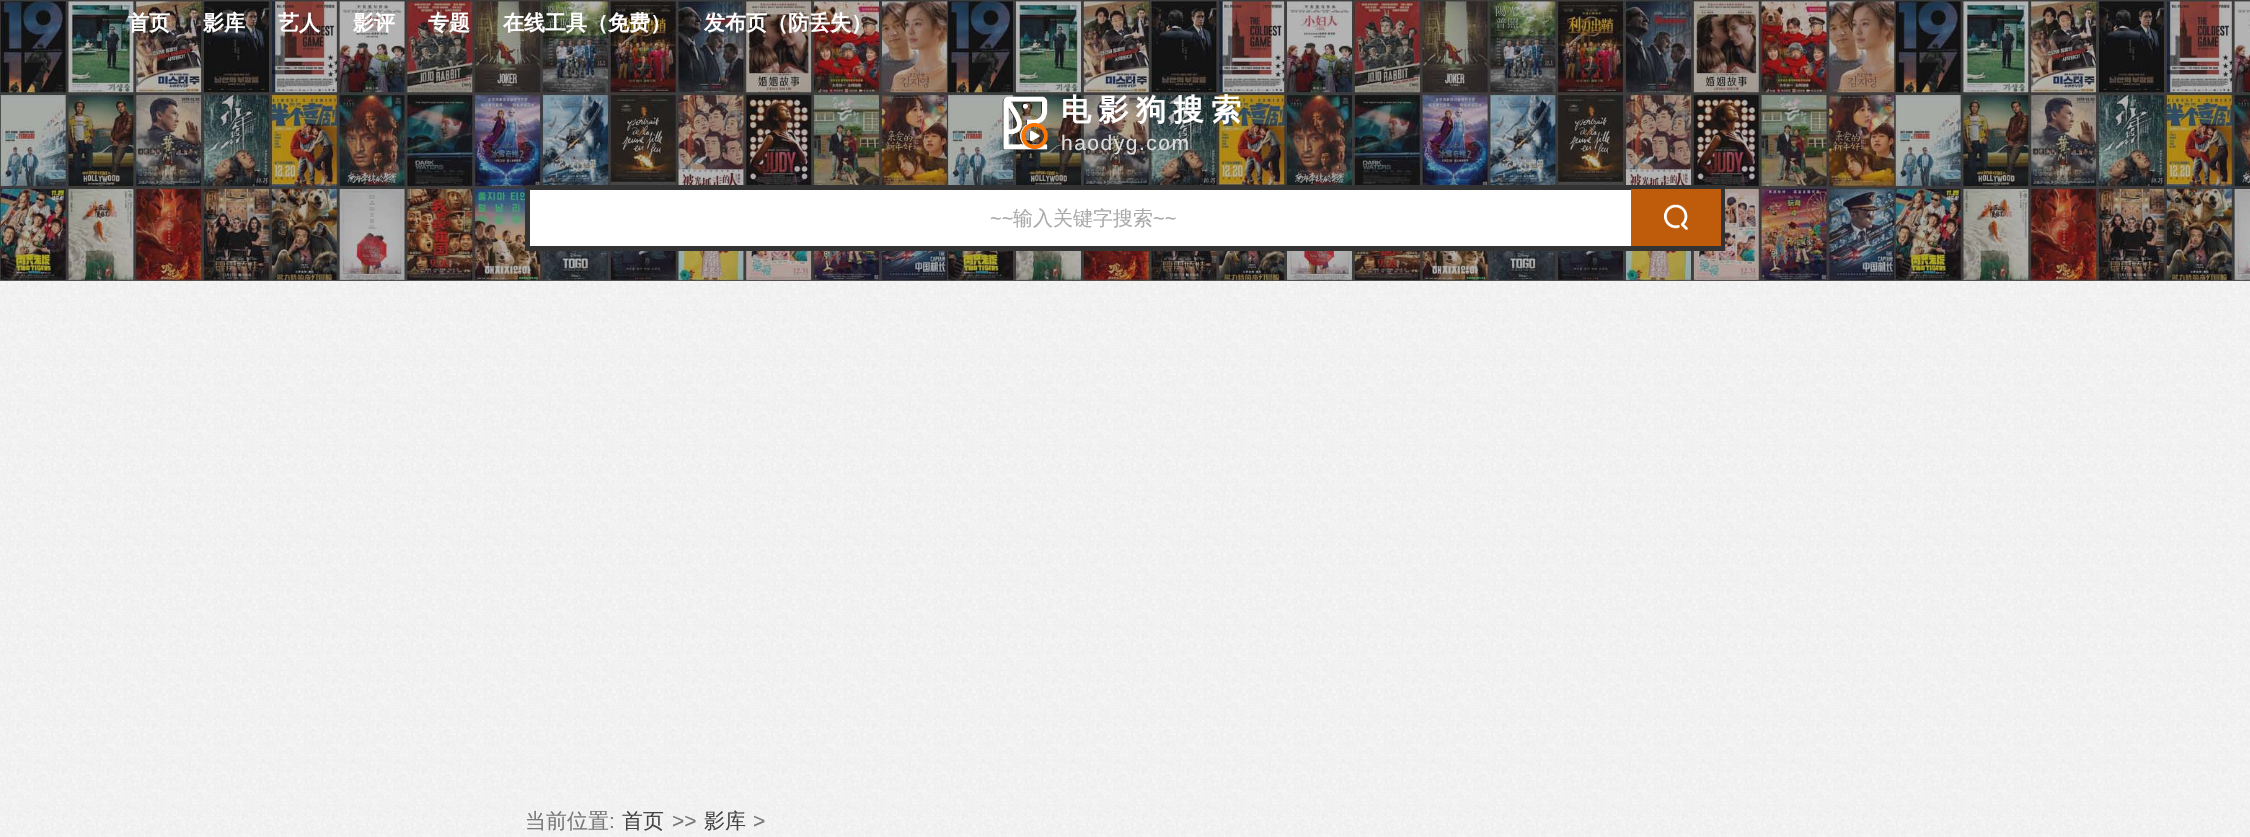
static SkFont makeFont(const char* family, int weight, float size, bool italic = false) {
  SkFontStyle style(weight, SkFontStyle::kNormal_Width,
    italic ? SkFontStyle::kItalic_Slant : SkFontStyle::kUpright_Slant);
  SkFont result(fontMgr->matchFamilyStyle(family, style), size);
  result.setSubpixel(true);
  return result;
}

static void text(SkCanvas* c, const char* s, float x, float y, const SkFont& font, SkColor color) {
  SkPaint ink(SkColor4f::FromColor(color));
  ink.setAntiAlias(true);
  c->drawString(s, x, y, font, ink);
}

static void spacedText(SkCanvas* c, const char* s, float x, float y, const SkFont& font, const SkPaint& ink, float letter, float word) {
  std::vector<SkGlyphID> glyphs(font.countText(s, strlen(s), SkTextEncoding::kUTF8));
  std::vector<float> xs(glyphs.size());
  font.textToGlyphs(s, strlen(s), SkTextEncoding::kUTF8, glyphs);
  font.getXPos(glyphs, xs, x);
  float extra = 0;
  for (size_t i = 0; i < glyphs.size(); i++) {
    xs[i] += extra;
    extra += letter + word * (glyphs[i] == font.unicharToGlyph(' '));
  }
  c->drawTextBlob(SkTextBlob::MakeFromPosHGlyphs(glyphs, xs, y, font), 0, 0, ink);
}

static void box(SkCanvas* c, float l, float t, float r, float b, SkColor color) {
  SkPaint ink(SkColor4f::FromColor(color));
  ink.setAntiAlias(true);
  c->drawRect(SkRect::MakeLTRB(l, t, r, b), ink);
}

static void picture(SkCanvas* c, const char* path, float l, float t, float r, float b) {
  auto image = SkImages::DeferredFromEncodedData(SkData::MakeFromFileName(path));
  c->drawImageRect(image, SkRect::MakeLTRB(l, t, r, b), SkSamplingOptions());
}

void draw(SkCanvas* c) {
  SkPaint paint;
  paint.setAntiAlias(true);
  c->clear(0xffffffff);
  picture(c, "img_01.png", 0, 281, 2250, 837);
  box(c, 0, 280, 2250, 281, 0xff666666);
  picture(c, "img_02.png", 0, 0, 2250, 281);
  SkFont face1 = makeFont("WenQuanYi Zen Hei", 700, 21);
  text(c, "首页", 128, 30, face1, 0xffffffff);
  text(c, "影库", 203, 30, face1, 0xffffffff);
  text(c, "艺人", 278, 30, face1, 0xffffffff);
  text(c, "影评", 353, 30, face1, 0xffffffff);
  text(c, "专题", 428, 30, face1, 0xffffffff);
  text(c, "在线工具（免费）", 503, 30, face1, 0xffffffff);
  text(c, "发布页（防丢失）", 704, 30, face1, 0xffffffff);
  picture(c, "img_03.png", 1002, 96, 1048, 150);
  SkFont face2 = makeFont("WenQuanYi Zen Hei", 700, 30);
  paint.setColor(0xffffffff);
  spacedText(c, "电影狗搜索", 1061, 120, face2, paint, 7.5f, 0);
  SkFont face3 = makeFont("Liberation Sans", 400, 21);
  paint.setColor(0xffdddddd);
  spacedText(c, "haodyg.com", 1061, 150, face3, paint, 1.5f, 0);
  box(c, 530, 190, 1631, 246, 0xffffffff);
  paint.setStyle(SkPaint::kStroke_Style);
  paint.setStrokeWidth(5);
  paint.setColor(0xff333333);
  c->drawRect(SkRect::MakeLTRB(527.5f, 187.5f, 1722.5f, 248.5f), paint);
  SkFont face4 = makeFont("Liberation Sans", 400, 20);
  text(c, "~~", 990, 225, face4, 0xffaaaaaa);
  SkFont face5 = makeFont("WenQuanYi Zen Hei", 500, 20);
  text(c, "输入关键字搜索", 1013, 225, face5, 0xffaaaaaa);
  text(c, "~~", 1153, 225, face4, 0xffaaaaaa);
  box(c, 1631, 189, 1721, 246, 0xffbf5c0b);
  picture(c, "img_04.png", 1664, 204, 1688, 230);
  SkFont face6 = makeFont("WenQuanYi Zen Hei", 500, 21);
  text(c, "当前位置", 525, 828, face6, 0xff777777);
  text(c, ":", 609, 828, face3, 0xff777777);
  text(c, "首页", 622, 828, face6, 0xff444444);
  text(c, ">>", 672, 828, face3, 0xff777777);
  text(c, "影库", 704, 828, face6, 0xff444444);
  text(c, ">", 753, 828, face3, 0xff777777);
}
